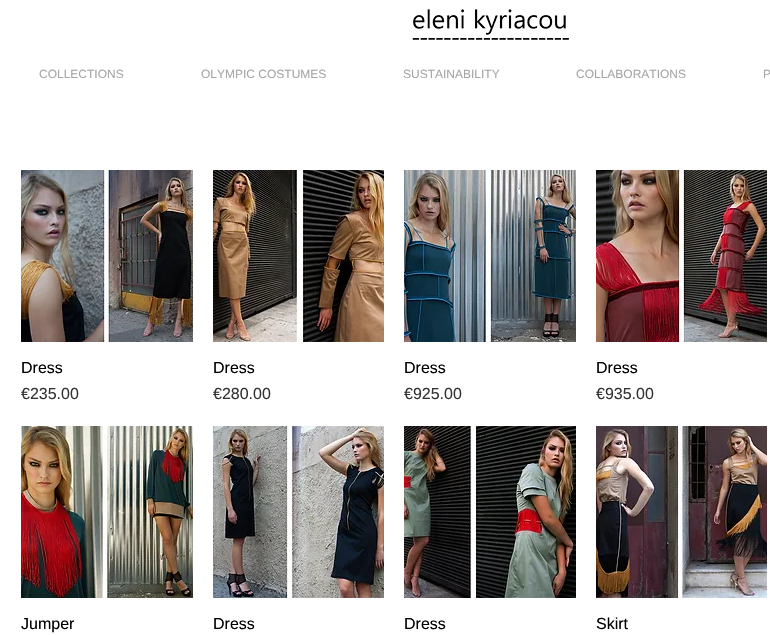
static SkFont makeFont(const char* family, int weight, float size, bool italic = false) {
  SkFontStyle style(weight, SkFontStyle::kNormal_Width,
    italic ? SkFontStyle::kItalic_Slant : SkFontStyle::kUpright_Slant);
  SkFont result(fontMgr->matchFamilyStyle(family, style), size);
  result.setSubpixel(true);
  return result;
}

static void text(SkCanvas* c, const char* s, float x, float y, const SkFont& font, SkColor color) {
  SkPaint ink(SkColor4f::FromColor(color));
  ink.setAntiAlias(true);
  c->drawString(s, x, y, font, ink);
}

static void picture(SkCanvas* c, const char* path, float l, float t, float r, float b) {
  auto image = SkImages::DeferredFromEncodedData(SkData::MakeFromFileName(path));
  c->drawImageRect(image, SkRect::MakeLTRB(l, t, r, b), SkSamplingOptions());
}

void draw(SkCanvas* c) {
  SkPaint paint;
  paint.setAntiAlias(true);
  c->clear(0xffffffff);
  picture(c, "img_01.png", 412, 9, 569, 40);
  SkFont face1 = makeFont("Liberation Sans", 400, 12);
  text(c, "COLLECTIONS", 39, 78, face1, 0xffa6a6a6);
  text(c, "OLYMPIC COSTUMES", 201, 78, face1, 0xffa6a6a6);
  text(c, "SUSTAINABILITY", 403, 78, face1, 0xffa6a6a6);
  text(c, "COLLABORATIONS", 576, 78, face1, 0xffa6a6a6);
  text(c, "P", 763, 78, face1, 0xffa6a6a6);
  picture(c, "img_02.png", 21, 170, 193, 342);
  SkFont face2 = makeFont("Liberation Sans", 400, 16);
  text(c, "Dress", 21, 373, face2, 0xff000000);
  text(c, "€235.00", 21, 399, face2, 0xff333333);
  picture(c, "img_03.png", 213, 170, 384, 342);
  text(c, "Dress", 213, 373, face2, 0xff000000);
  text(c, "€280.00", 213, 399, face2, 0xff333333);
  picture(c, "img_04.png", 404, 170, 576, 342);
  text(c, "Dress", 404, 373, face2, 0xff000000);
  text(c, "€925.00", 404, 399, face2, 0xff333333);
  picture(c, "img_05.png", 596, 170, 767, 342);
  text(c, "Dress", 596, 373, face2, 0xff000000);
  text(c, "€935.00", 596, 399, face2, 0xff333333);
  picture(c, "img_06.png", 21, 426, 193, 598);
  text(c, "Jumper", 21, 629, face2, 0xff000000);
  picture(c, "img_07.png", 213, 426, 384, 598);
  text(c, "Dress", 213, 629, face2, 0xff000000);
  picture(c, "img_08.png", 404, 426, 576, 598);
  text(c, "Dress", 404, 629, face2, 0xff000000);
  picture(c, "img_09.png", 596, 426, 767, 598);
  text(c, "Skirt", 596, 629, face2, 0xff000000);
}
